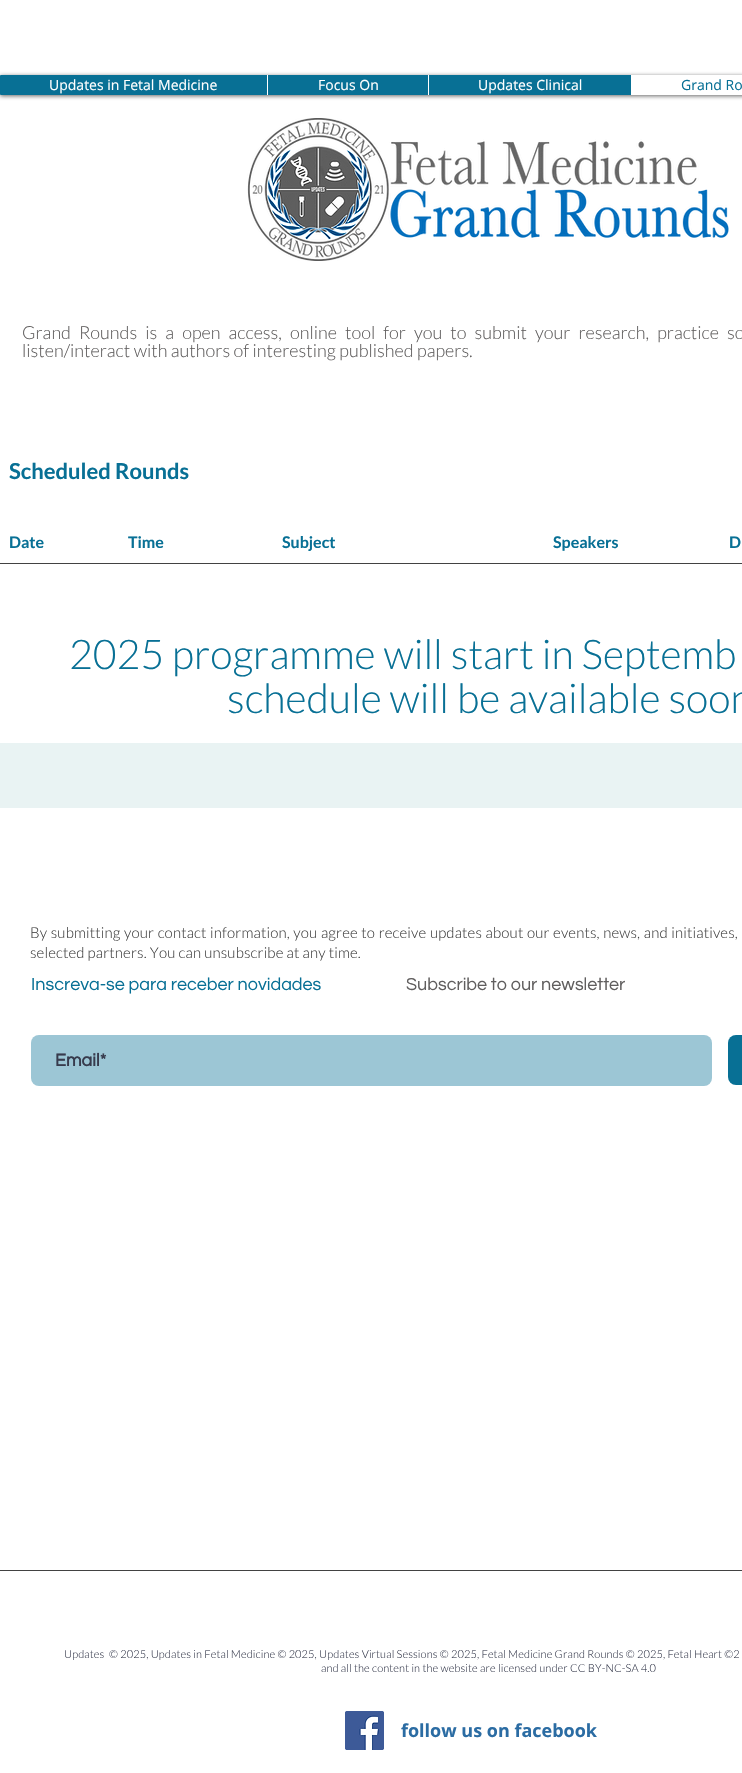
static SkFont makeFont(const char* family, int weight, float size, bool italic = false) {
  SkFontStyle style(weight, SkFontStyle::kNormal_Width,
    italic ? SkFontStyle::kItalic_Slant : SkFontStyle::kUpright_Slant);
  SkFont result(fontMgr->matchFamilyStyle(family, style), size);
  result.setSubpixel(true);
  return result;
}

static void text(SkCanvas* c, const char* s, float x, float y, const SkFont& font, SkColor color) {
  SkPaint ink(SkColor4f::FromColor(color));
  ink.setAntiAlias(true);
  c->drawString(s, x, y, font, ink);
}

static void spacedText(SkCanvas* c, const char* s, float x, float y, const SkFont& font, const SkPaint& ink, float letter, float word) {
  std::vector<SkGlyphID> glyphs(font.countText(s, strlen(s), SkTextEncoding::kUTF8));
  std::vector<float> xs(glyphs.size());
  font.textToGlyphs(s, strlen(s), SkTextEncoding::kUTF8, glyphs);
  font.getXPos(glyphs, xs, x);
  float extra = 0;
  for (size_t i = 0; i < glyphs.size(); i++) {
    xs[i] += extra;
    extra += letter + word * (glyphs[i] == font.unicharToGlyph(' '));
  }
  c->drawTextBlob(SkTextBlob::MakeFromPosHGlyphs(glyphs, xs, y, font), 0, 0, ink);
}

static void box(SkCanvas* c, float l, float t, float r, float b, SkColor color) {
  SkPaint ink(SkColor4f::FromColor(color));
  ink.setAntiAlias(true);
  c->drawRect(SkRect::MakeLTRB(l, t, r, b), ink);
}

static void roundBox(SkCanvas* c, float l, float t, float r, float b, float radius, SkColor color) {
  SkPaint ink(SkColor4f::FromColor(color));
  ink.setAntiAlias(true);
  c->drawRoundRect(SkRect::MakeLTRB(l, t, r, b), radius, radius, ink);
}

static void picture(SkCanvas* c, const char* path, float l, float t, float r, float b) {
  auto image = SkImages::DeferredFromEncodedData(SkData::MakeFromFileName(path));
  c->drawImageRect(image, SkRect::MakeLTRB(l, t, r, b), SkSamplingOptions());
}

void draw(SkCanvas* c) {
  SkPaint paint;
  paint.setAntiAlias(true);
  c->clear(0xffffffff);
  paint.setColor(0x99000000);
  paint.setMaskFilter(SkMaskFilter::MakeBlur(kNormal_SkBlurStyle, 2));
  c->drawRoundRect(SkRect::MakeLTRB(0, 76, 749, 96), 1, 1, paint);
  paint.setMaskFilter(nullptr);
  roundBox(c, 0, 75, 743, 95, 1, 0xff087095);
  SkFont face1 = makeFont("Open Sans", 400, 14);
  text(c, "Updates in Fetal Medicine", 49, 90, face1, 0xffffffff);
  box(c, 267, 75, 268, 95, 0xffffffff);
  text(c, "Focus On", 318, 90, face1, 0xffffffff);
  box(c, 428, 75, 429, 95, 0xffffffff);
  text(c, "Updates Clinical", 478, 90, face1, 0xffffffff);
  box(c, 631, 75, 742, 95, 0xffffffff);
  text(c, "Grand Ro", 681, 90, face1, 0xff087095);
  picture(c, "img_01.png", 247, 118, 729, 261);
  SkFont face2 = makeFont("Lato", 300, 18);
  paint.setColor(0xff605e5e);
  spacedText(c, "Grand Rounds is a open access, online tool for you to submit your research, practice sc", 22, 339, face2, paint, 0, 4.6f);
  text(c, "listen/interact with authors of interesting published papers.", 22, 357, face2, 0xff605e5e);
  SkFont face3 = makeFont("Lato", 700, 22);
  text(c, "Scheduled Rounds", 9, 479, face3, 0xff087095);
  SkFont face4 = makeFont("Lato", 700, 16);
  text(c, "Date", 9, 548, face4, 0xff087095);
  text(c, "Time", 128, 548, face4, 0xff087095);
  text(c, "Subject", 282, 548, face4, 0xff087095);
  text(c, "Speakers", 553, 548, face4, 0xff087095);
  text(c, "D", 729, 548, face4, 0xff087095);
  box(c, 0, 563, 742, 564, 0xff424242);
  SkFont face5 = makeFont("Lato", 300, 41);
  text(c, "2025 programme will start in Septemb", 69, 669, face5, 0xff087095);
  text(c, "schedule will be available soon", 227, 713, face5, 0xff087095);
  box(c, 0, 743, 742, 808, 0xffe9f3f3);
  SkFont face6 = makeFont("Lato", 300, 15);
  paint.setColor(0xff424242);
  spacedText(c, "By submitting your contact information, you agree to receive updates about our events, news, and initiatives,", 30, 938, face6, paint, 0.15f, 0.5f);
  spacedText(c, "selected partners. You can unsubscribe at any time.", 30, 958, face6, paint, 0.15f, 0);
  SkFont face7 = makeFont("Questrial", 400, 18);
  text(c, "Inscreva-se para receber novidades", 31, 990, face7, 0xff087095);
  text(c, "Subscribe to our newsletter", 406, 990, face7, 0xff605e5e);
  roundBox(c, 31, 1035, 712, 1086, 8, 0xff9cc6d5);
  SkFont face8 = makeFont("Questrial", 700, 18);
  text(c, "Email*", 55, 1066, face8, 0xff373b4d);
  roundBox(c, 728, 1035, 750, 1085, 8, 0xff087095);
  box(c, 0, 1570, 742, 1571, 0xff424242);
  SkFont face9 = makeFont("Lato", 300, 11);
  paint.setColor(0xff373b4d);
  spacedText(c, "Updates", 64, 1658, face9, paint, 0.11f, 0);
  spacedText(c, "© 2025, Updates in Fetal Medicine © 2025, Updates Virtual Sessions © 2025, Fetal Medicine Grand Rounds © 2025, Fetal Heart ©2", 109, 1658, face9, paint, 0.11f, 0);
  spacedText(c, "and all the content in the website are licensed under CC BY-NC-SA 4.0", 321, 1672, face9, paint, 0.11f, 0);
  picture(c, "img_02.png", 345, 1711, 384, 1750);
  SkFont face10 = makeFont("Open Sans", 700, 18);
  text(c, "follow us on facebook", 401, 1737, face10, 0xff2b6ca3);
}
